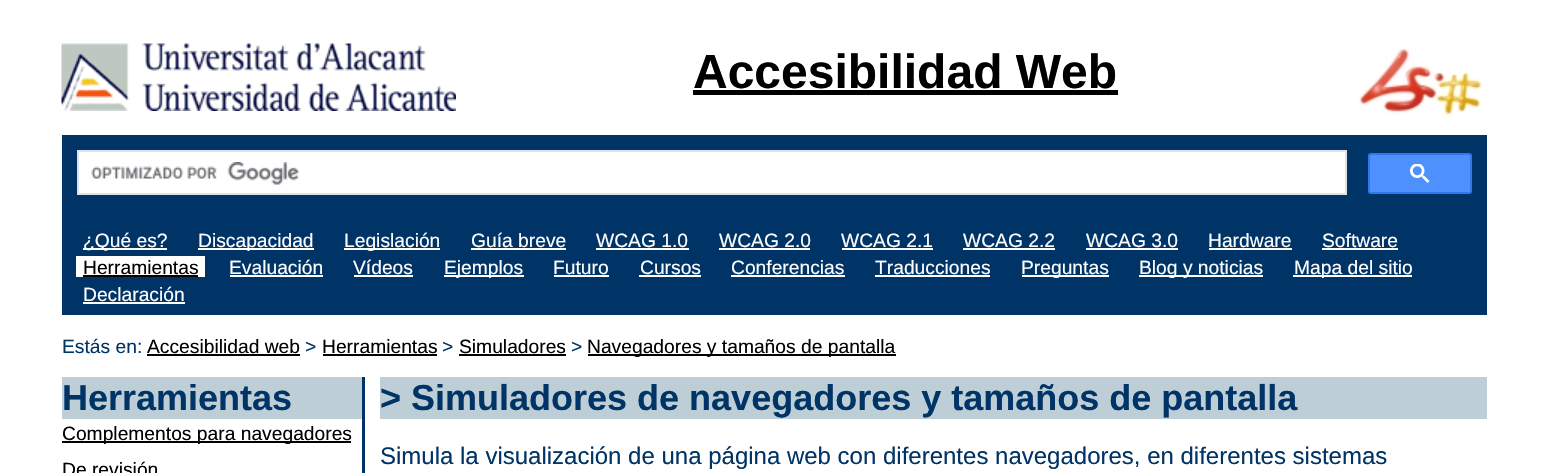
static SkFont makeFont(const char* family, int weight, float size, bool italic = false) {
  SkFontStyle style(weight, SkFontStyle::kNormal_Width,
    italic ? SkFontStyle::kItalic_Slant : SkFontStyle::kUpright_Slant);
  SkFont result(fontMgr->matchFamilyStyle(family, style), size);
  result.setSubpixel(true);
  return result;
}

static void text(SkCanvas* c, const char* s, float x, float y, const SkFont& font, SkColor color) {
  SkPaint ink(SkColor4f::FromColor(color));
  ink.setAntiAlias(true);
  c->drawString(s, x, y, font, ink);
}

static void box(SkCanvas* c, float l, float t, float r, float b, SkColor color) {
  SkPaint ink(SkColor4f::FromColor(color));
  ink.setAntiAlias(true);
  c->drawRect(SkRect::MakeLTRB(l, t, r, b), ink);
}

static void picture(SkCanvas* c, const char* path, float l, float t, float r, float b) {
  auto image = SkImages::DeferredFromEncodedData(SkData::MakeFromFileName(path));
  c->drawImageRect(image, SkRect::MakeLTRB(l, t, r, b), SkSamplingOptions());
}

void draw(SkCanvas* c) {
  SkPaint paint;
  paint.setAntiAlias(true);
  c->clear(0xffffffff);
  picture(c, "img_01.png", 61, 43, 456, 111);
  SkFont face1 = makeFont("Liberation Sans", 700, 48);
  text(c, "Accesibilidad Web", 693, 88, face1, 0xff000000);
  box(c, 693, 90, 1118, 95, 0xff000000);
  picture(c, "img_02.png", 1359, 48, 1482, 117);
  box(c, 62, 135, 1487, 315, 0xff003366);
  paint.setColor(0xffffffff);
  c->drawRect(SkRect::MakeLTRB(78, 151, 1346, 194), paint);
  paint.setStyle(SkPaint::kStroke_Style);
  paint.setStrokeWidth(2);
  paint.setColor(0xffdfe1e5);
  c->drawRect(SkRect::MakeLTRB(78, 151, 1346, 194), paint);
  picture(c, "img_03.png", 91, 162, 299, 185);
  paint.setStyle(SkPaint::kFill_Style);
  paint.setColor(0xff4d90fe);
  c->drawRoundRect(SkRect::MakeLTRB(1369, 154, 1471, 193), 2, 2, paint);
  paint.setStyle(SkPaint::kStroke_Style);
  paint.setColor(0xff3079ed);
  c->drawRoundRect(SkRect::MakeLTRB(1369, 154, 1471, 193), 2, 2, paint);
  picture(c, "img_04.png", 1410, 164, 1430, 183);
  box(c, 83, 248, 167, 250, 0xffffffff);
  SkFont face2 = makeFont("Liberation Sans", 400, 19.25f);
  text(c, "¿Qué es?", 83, 247, face2, 0xffffffff);
  box(c, 198, 248, 314, 250, 0xffffffff);
  text(c, "Discapacidad", 198, 247, face2, 0xffffffff);
  box(c, 344, 248, 440, 250, 0xffffffff);
  text(c, "Legislación", 344, 247, face2, 0xffffffff);
  text(c, "Guía breve", 471, 247, face2, 0xffffffff);
  box(c, 471, 248, 566, 250, 0xffffffff);
  text(c, "WCAG 1.0", 596, 247, face2, 0xffffffff);
  box(c, 596, 248, 689, 250, 0xffffffff);
  text(c, "WCAG 2.0", 719, 247, face2, 0xffffffff);
  box(c, 719, 248, 810, 250, 0xffffffff);
  text(c, "WCAG 2.1", 841, 247, face2, 0xffffffff);
  box(c, 842, 248, 933, 250, 0xffffffff);
  text(c, "WCAG 2.2", 963, 247, face2, 0xffffffff);
  box(c, 963, 248, 1055, 250, 0xffffffff);
  text(c, "WCAG 3.0", 1086, 247, face2, 0xffffffff);
  box(c, 1086, 248, 1178, 250, 0xffffffff);
  text(c, "Hardware", 1208, 247, face2, 0xffffffff);
  box(c, 1209, 248, 1292, 250, 0xffffffff);
  text(c, "Software", 1322, 247, face2, 0xffffffff);
  box(c, 1322, 248, 1398, 250, 0xffffffff);
  box(c, 76, 256, 205, 277, 0xffffffff);
  text(c, "Herramientas", 83, 274, face2, 0xff000000);
  box(c, 83, 275, 198, 277, 0xff000000);
  text(c, "Evaluación", 229, 274, face2, 0xffffffff);
  box(c, 230, 275, 323, 277, 0xffffffff);
  text(c, "Vídeos", 353, 274, face2, 0xffffffff);
  box(c, 354, 275, 413, 277, 0xffffffff);
  box(c, 444, 275, 524, 277, 0xffffffff);
  text(c, "Ejemplos", 444, 274, face2, 0xffffffff);
  text(c, "Futuro", 553, 274, face2, 0xffffffff);
  box(c, 554, 275, 609, 277, 0xffffffff);
  text(c, "Cursos", 640, 274, face2, 0xffffffff);
  box(c, 639, 275, 701, 277, 0xffffffff);
  text(c, "Conferencias", 731, 274, face2, 0xffffffff);
  box(c, 731, 275, 845, 277, 0xffffffff);
  text(c, "Traducciones", 875, 274, face2, 0xffffffff);
  box(c, 875, 275, 990, 277, 0xffffffff);
  box(c, 1022, 275, 1109, 277, 0xffffffff);
  text(c, "Preguntas", 1021, 274, face2, 0xffffffff);
  box(c, 1139, 275, 1263, 277, 0xffffffff);
  text(c, "Blog y noticias", 1139, 274, face2, 0xffffffff);
  box(c, 1293, 275, 1412, 277, 0xffffffff);
  text(c, "Mapa del sitio", 1294, 274, face2, 0xffffffff);
  text(c, "Declaración", 83, 301, face2, 0xffffffff);
  box(c, 83, 302, 185, 304, 0xffffffff);
  text(c, "Estás en:", 62, 353, face2, 0xff003366);
  text(c, "Accesibilidad web", 147, 353, face2, 0xff000000);
  box(c, 147, 354, 300, 356, 0xff000000);
  text(c, ">", 305, 353, face2, 0xff003366);
  text(c, "Herramientas", 322, 353, face2, 0xff000000);
  box(c, 323, 354, 437, 356, 0xff000000);
  text(c, ">", 442, 353, face2, 0xff003366);
  text(c, "Simuladores", 459, 353, face2, 0xff000000);
  box(c, 459, 354, 566, 356, 0xff000000);
  text(c, ">", 571, 353, face2, 0xff003366);
  box(c, 588, 354, 896, 356, 0xff000000);
  text(c, "Navegadores y tamaños de pantalla", 587, 353, face2, 0xff000000);
  box(c, 62, 377, 362, 419, 0xffbdced6);
  SkFont face3 = makeFont("Liberation Sans", 700, 36);
  text(c, "Herramientas", 62, 410, face3, 0xff003366);
  box(c, 62, 441, 351, 443, 0xff000000);
  text(c, "Complementos para navegadores", 62, 440, face2, 0xff000000);
  text(c, "De revisión", 62, 476, face2, 0xff000000);
  box(c, 362, 377, 365, 473, 0xff003366);
  box(c, 380, 377, 1487, 419, 0xffbdced6);
  text(c, "> Simuladores de navegadores y tamaños de pantalla", 380, 410, face3, 0xff003366);
  SkFont face4 = makeFont("Liberation Sans", 400, 24);
  text(c, "Simula la visualización de una página web con diferentes navegadores, en diferentes sistemas", 380, 464, face4, 0xff003366);
}
